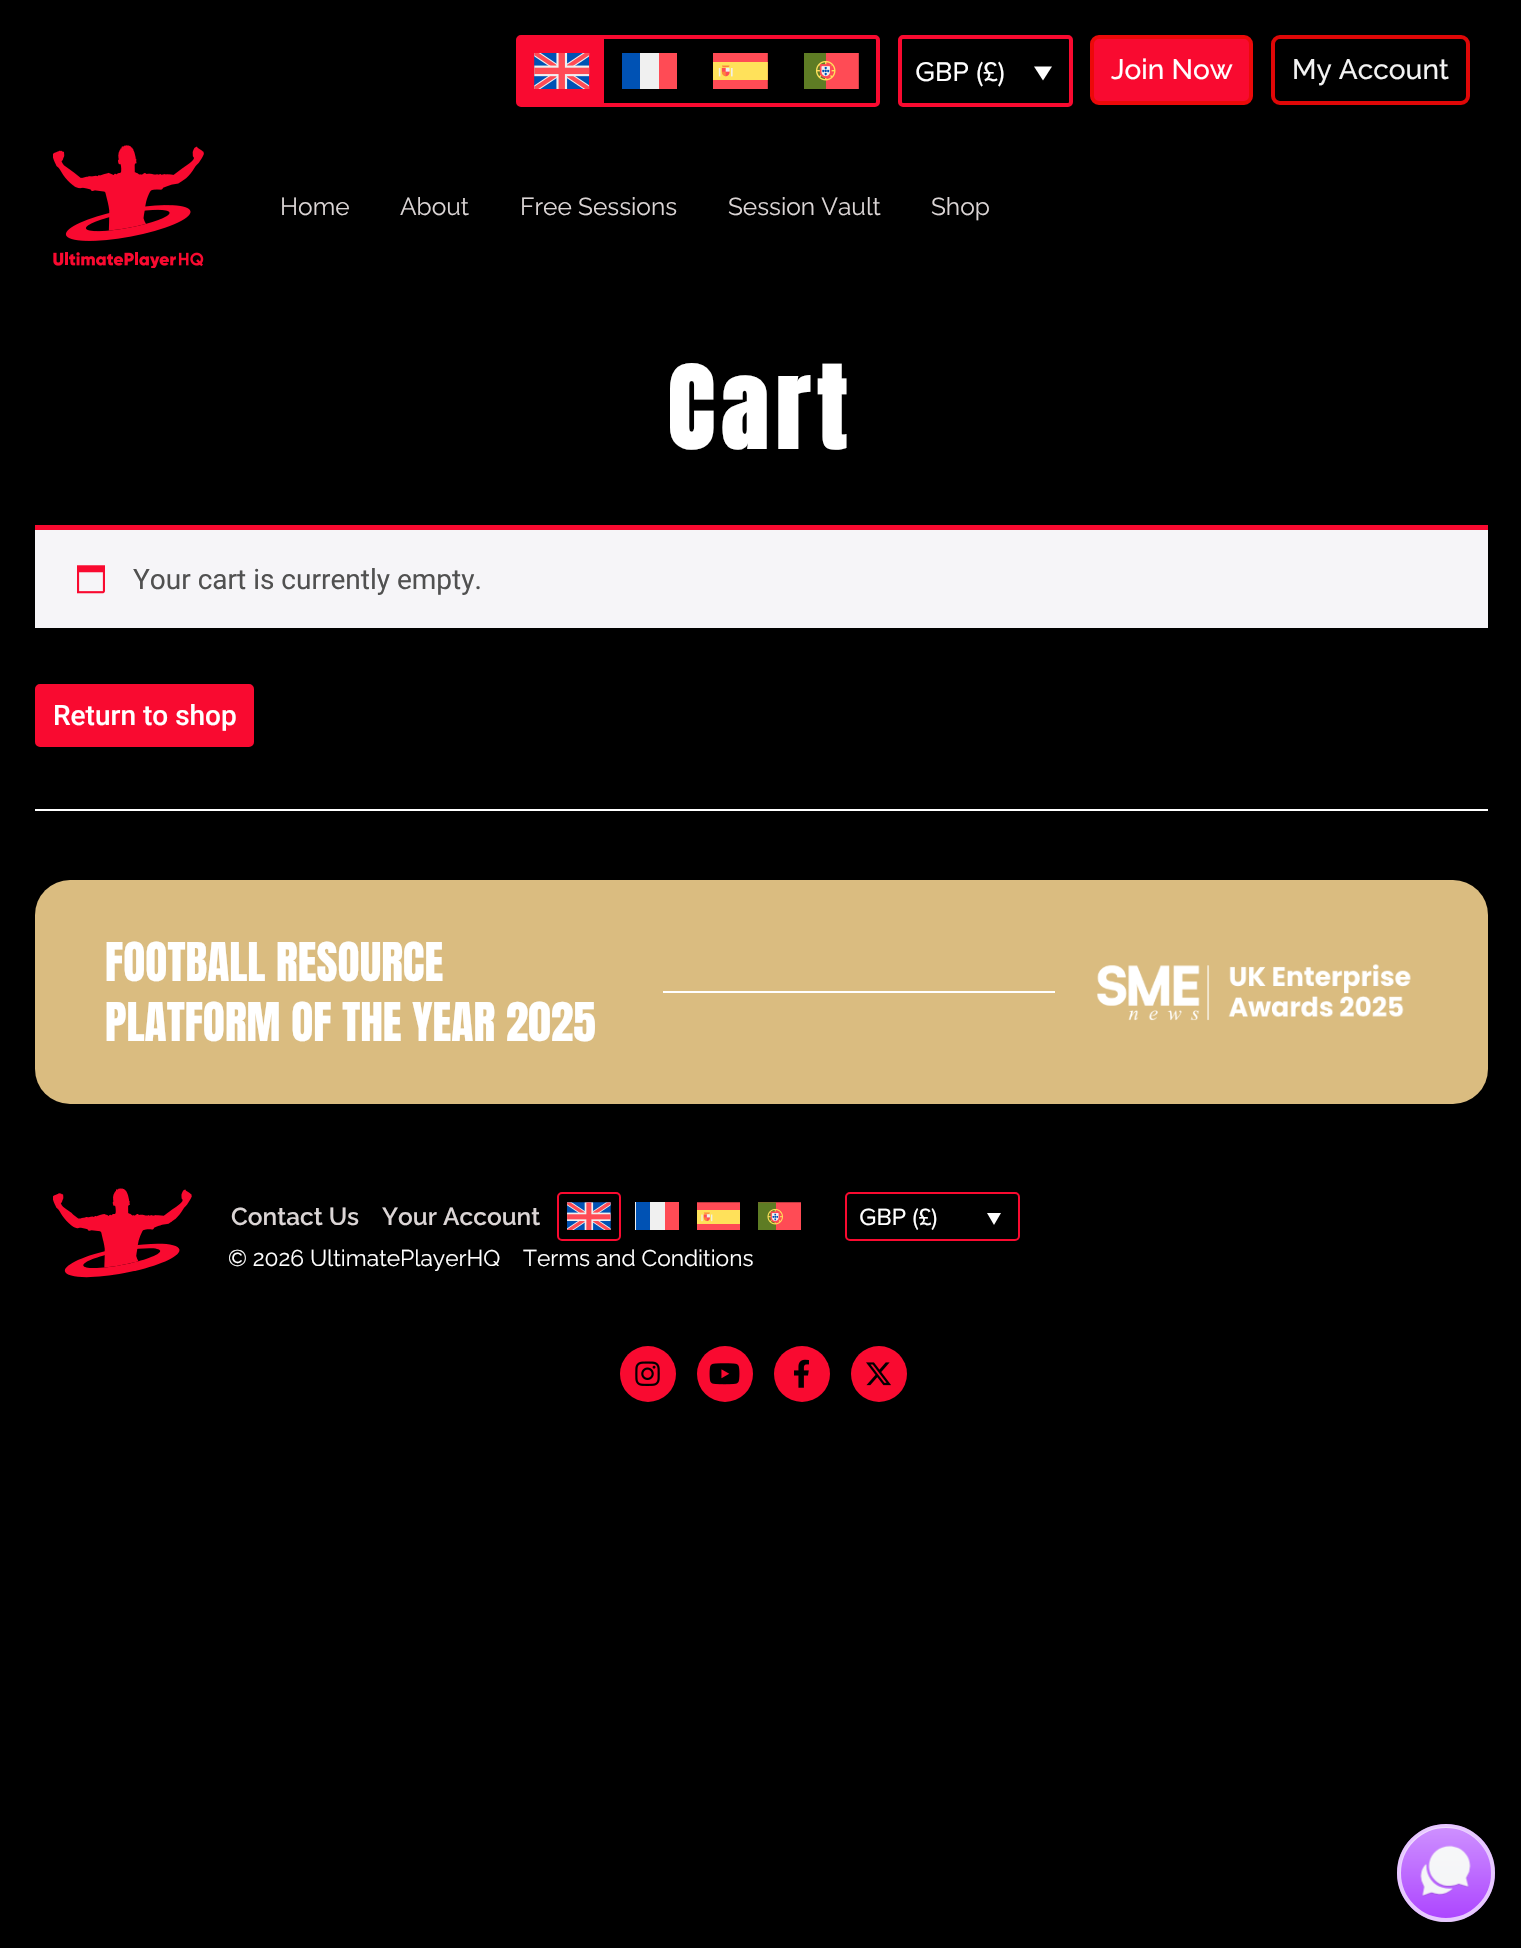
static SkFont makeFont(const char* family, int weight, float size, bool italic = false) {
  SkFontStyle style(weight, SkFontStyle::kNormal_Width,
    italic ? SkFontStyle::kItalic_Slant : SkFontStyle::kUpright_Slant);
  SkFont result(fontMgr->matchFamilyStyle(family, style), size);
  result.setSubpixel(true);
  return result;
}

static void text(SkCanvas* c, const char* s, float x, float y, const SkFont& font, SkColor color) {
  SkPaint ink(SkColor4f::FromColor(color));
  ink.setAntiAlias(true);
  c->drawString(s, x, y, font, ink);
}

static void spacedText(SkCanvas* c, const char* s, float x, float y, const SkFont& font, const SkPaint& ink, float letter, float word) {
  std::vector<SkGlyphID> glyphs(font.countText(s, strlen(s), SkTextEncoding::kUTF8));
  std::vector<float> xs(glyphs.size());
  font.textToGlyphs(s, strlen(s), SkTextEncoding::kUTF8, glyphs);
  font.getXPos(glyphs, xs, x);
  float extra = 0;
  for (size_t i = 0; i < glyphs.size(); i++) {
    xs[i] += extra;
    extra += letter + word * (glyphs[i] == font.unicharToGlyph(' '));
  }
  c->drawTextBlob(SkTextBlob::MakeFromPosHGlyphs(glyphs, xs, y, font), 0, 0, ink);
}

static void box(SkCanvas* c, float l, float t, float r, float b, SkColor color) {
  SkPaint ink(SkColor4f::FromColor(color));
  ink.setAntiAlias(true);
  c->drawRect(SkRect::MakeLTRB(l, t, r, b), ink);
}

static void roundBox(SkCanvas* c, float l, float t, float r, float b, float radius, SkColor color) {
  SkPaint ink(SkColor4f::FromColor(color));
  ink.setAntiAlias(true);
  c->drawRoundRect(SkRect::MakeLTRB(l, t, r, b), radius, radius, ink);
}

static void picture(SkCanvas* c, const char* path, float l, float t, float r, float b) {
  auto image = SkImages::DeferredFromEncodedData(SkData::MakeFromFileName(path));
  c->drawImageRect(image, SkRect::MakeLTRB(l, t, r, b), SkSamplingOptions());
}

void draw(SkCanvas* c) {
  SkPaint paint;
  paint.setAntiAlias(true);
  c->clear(0xff000000);
  paint.setStyle(SkPaint::kStroke_Style);
  paint.setStrokeWidth(4);
  paint.setColor(0xfff90a30);
  c->drawRoundRect(SkRect::MakeLTRB(518, 37, 878, 105), 3, 3, paint);
  box(c, 520, 39, 604, 103, 0xfff90a30);
  picture(c, "img_01.png", 534, 53, 590, 89);
  box(c, 622, 53, 640, 89, 0xff0052b4);
  box(c, 640, 53, 659, 89, 0xfff0f0f0);
  box(c, 659, 53, 677, 89, 0xffff4b55);
  picture(c, "img_02.png", 713, 53, 768, 89);
  picture(c, "img_03.png", 804, 53, 859, 89);
  c->drawRoundRect(SkRect::MakeLTRB(900, 37, 1071, 105), 3, 3, paint);
  SkFont face1 = makeFont("Proxima Nova", 400, 28);
  text(c, "GBP (£)", 915, 81, face1, 0xffffffff);
  paint.setStyle(SkPaint::kFill_Style);
  paint.setColor(0xffffffff);
  c->drawPath(SkPathBuilder().moveTo(1034, 66.5f).lineTo(1052, 66.5f).lineTo(1043, 80.5f).close().detach(), paint);
  paint.setColor(0xfff90a30);
  c->drawRoundRect(SkRect::MakeLTRB(1092, 37, 1251, 103), 7, 7, paint);
  paint.setStyle(SkPaint::kStroke_Style);
  paint.setColor(0xffec0909);
  c->drawRoundRect(SkRect::MakeLTRB(1092, 37, 1251, 103), 7, 7, paint);
  SkFont face2 = makeFont("Raleway", 500, 28);
  text(c, "Join Now", 1111, 79, face2, 0xffffffff);
  paint.setColor(0xffdf0707);
  c->drawRoundRect(SkRect::MakeLTRB(1273, 37, 1468, 103), 7, 7, paint);
  text(c, "My Account", 1292, 79, face2, 0xfff3f3f3);
  picture(c, "img_04.png", 53, 145, 204, 268);
  SkFont face3 = makeFont("Raleway", 400, 24.5f);
  text(c, "Home", 280, 215, face3, 0xffdbd5d5);
  text(c, "About", 400, 215, face3, 0xffdbd5d5);
  text(c, "Free Sessions", 520, 215, face3, 0xffdbd5d5);
  text(c, "Session Vault", 728, 215, face3, 0xffdbd5d5);
  text(c, "Shop", 931, 215, face3, 0xffdbd5d5);
  SkFont face4 = makeFont("Anton", 700, 96);
  paint.setStyle(SkPaint::kFill_Style);
  paint.setColor(0xffffffff);
  spacedText(c, "Cart", 667, 449, face4, paint, 8, 0);
  box(c, 35, 530, 1488, 628, 0xfff6f5f8);
  box(c, 35, 525, 1488, 530, 0xfff90a30);
  picture(c, "img_05.png", 77, 565, 105, 594);
  SkFont face5 = makeFont("Roboto", 400, 28);
  text(c, "Your cart is currently empty.", 133, 589, face5, 0xff515151);
  paint.setColor(0xfff90a30);
  c->drawRoundRect(SkRect::MakeLTRB(37, 686, 252, 745), 3, 3, paint);
  paint.setStyle(SkPaint::kStroke_Style);
  c->drawRoundRect(SkRect::MakeLTRB(37, 686, 252, 745), 3, 3, paint);
  SkFont face6 = makeFont("Roboto", 500, 28);
  text(c, "Return to shop", 53, 725, face6, 0xffffffff);
  box(c, 35, 809, 1488, 811, 0xffffffff);
  roundBox(c, 35, 880, 1488, 1104, 35, 0xffdabc80);
  SkFont face7 = makeFont("Anton", 400, 45.5f);
  text(c, "FOOTBALL RESOURCE", 105, 981, face7, 0xffffffff);
  text(c, "PLATFORM OF THE YEAR 2025", 105, 1041, face7, 0xffffffff);
  box(c, 663, 991, 1055, 993, 0xffffffff);
  picture(c, "img_06.png", 1097, 964, 1411, 1021);
  picture(c, "img_07.png", 53, 1188, 192, 1278);
  SkFont face8 = makeFont("Raleway", 600, 24.5f);
  text(c, "Contact Us", 231, 1225, face8, 0xffdbd5d5);
  text(c, "Your Account", 382, 1225, face8, 0xffdbd5d5);
  paint.setStrokeWidth(2);
  paint.setColor(0xfffa0a30);
  c->drawRoundRect(SkRect::MakeLTRB(558, 1193, 620, 1240), 4, 4, paint);
  picture(c, "img_08.png", 567, 1202, 611, 1230);
  box(c, 635, 1202, 665, 1230, 0xfff0f0f0);
  box(c, 665, 1202, 679, 1230, 0xffff4b55);
  box(c, 636, 1202, 650, 1230, 0xff0052b4);
  picture(c, "img_09.png", 697, 1202, 740, 1230);
  picture(c, "img_10.png", 758, 1202, 801, 1230);
  c->drawRoundRect(SkRect::MakeLTRB(846, 1193, 1019, 1240), 4, 4, paint);
  SkFont face9 = makeFont("Proxima Nova", 400, 24.5f);
  text(c, "GBP (£)", 859, 1225, face9, 0xffffffff);
  paint.setStyle(SkPaint::kFill_Style);
  paint.setColor(0xffffffff);
  c->drawPath(SkPathBuilder().moveTo(987, 1213).lineTo(1001, 1213).lineTo(994, 1225).close().detach(), paint);
  SkFont face10 = makeFont("Raleway", 400, 22.75f);
  text(c, "© 2026 UltimatePlayerHQ", 228, 1266, face10, 0xffffffff);
  text(c, "Terms and Conditions", 523, 1266, face10, 0xffffffff);
  paint.setColor(0xfff90a30);
  c->drawCircle(648, 1374, 28, paint);
  picture(c, "img_11.png", 635, 1361, 660, 1386);
  c->drawCircle(725, 1374, 28, paint);
  picture(c, "img_12.png", 709, 1363, 740, 1385);
  c->drawCircle(802, 1374, 28, paint);
  picture(c, "img_13.png", 794, 1359, 809, 1388);
  c->drawCircle(879, 1374, 28, paint);
  picture(c, "img_14.png", 866, 1362, 891, 1386);
  paint.setColor(0xffad46ff);
  c->drawCircle(1446, 1873, 49, paint);
  paint.setStyle(SkPaint::kStroke_Style);
  paint.setStrokeWidth(4);
  paint.setColor(0xb3ffffff);
  c->drawCircle(1446, 1873, 47, paint);
  picture(c, "img_15.png", 1420, 1845, 1471, 1897);
  paint.setStyle(SkPaint::kFill_Style);
  {
    const SkColor colors[] = {0x66ffffff, 0x00ffffff};
    const float stops[] = {0, 1};
    const SkPoint ends[] = {{1446, 1827}, {1446, 1918}};
    paint.setShader(SkGradientShader::MakeLinear(ends, colors, stops, 2, SkTileMode::kClamp));
    paint.setAlpha(255);
  }
  c->drawCircle(1445.5f, 1872.5f, 45.5f, paint);
}
